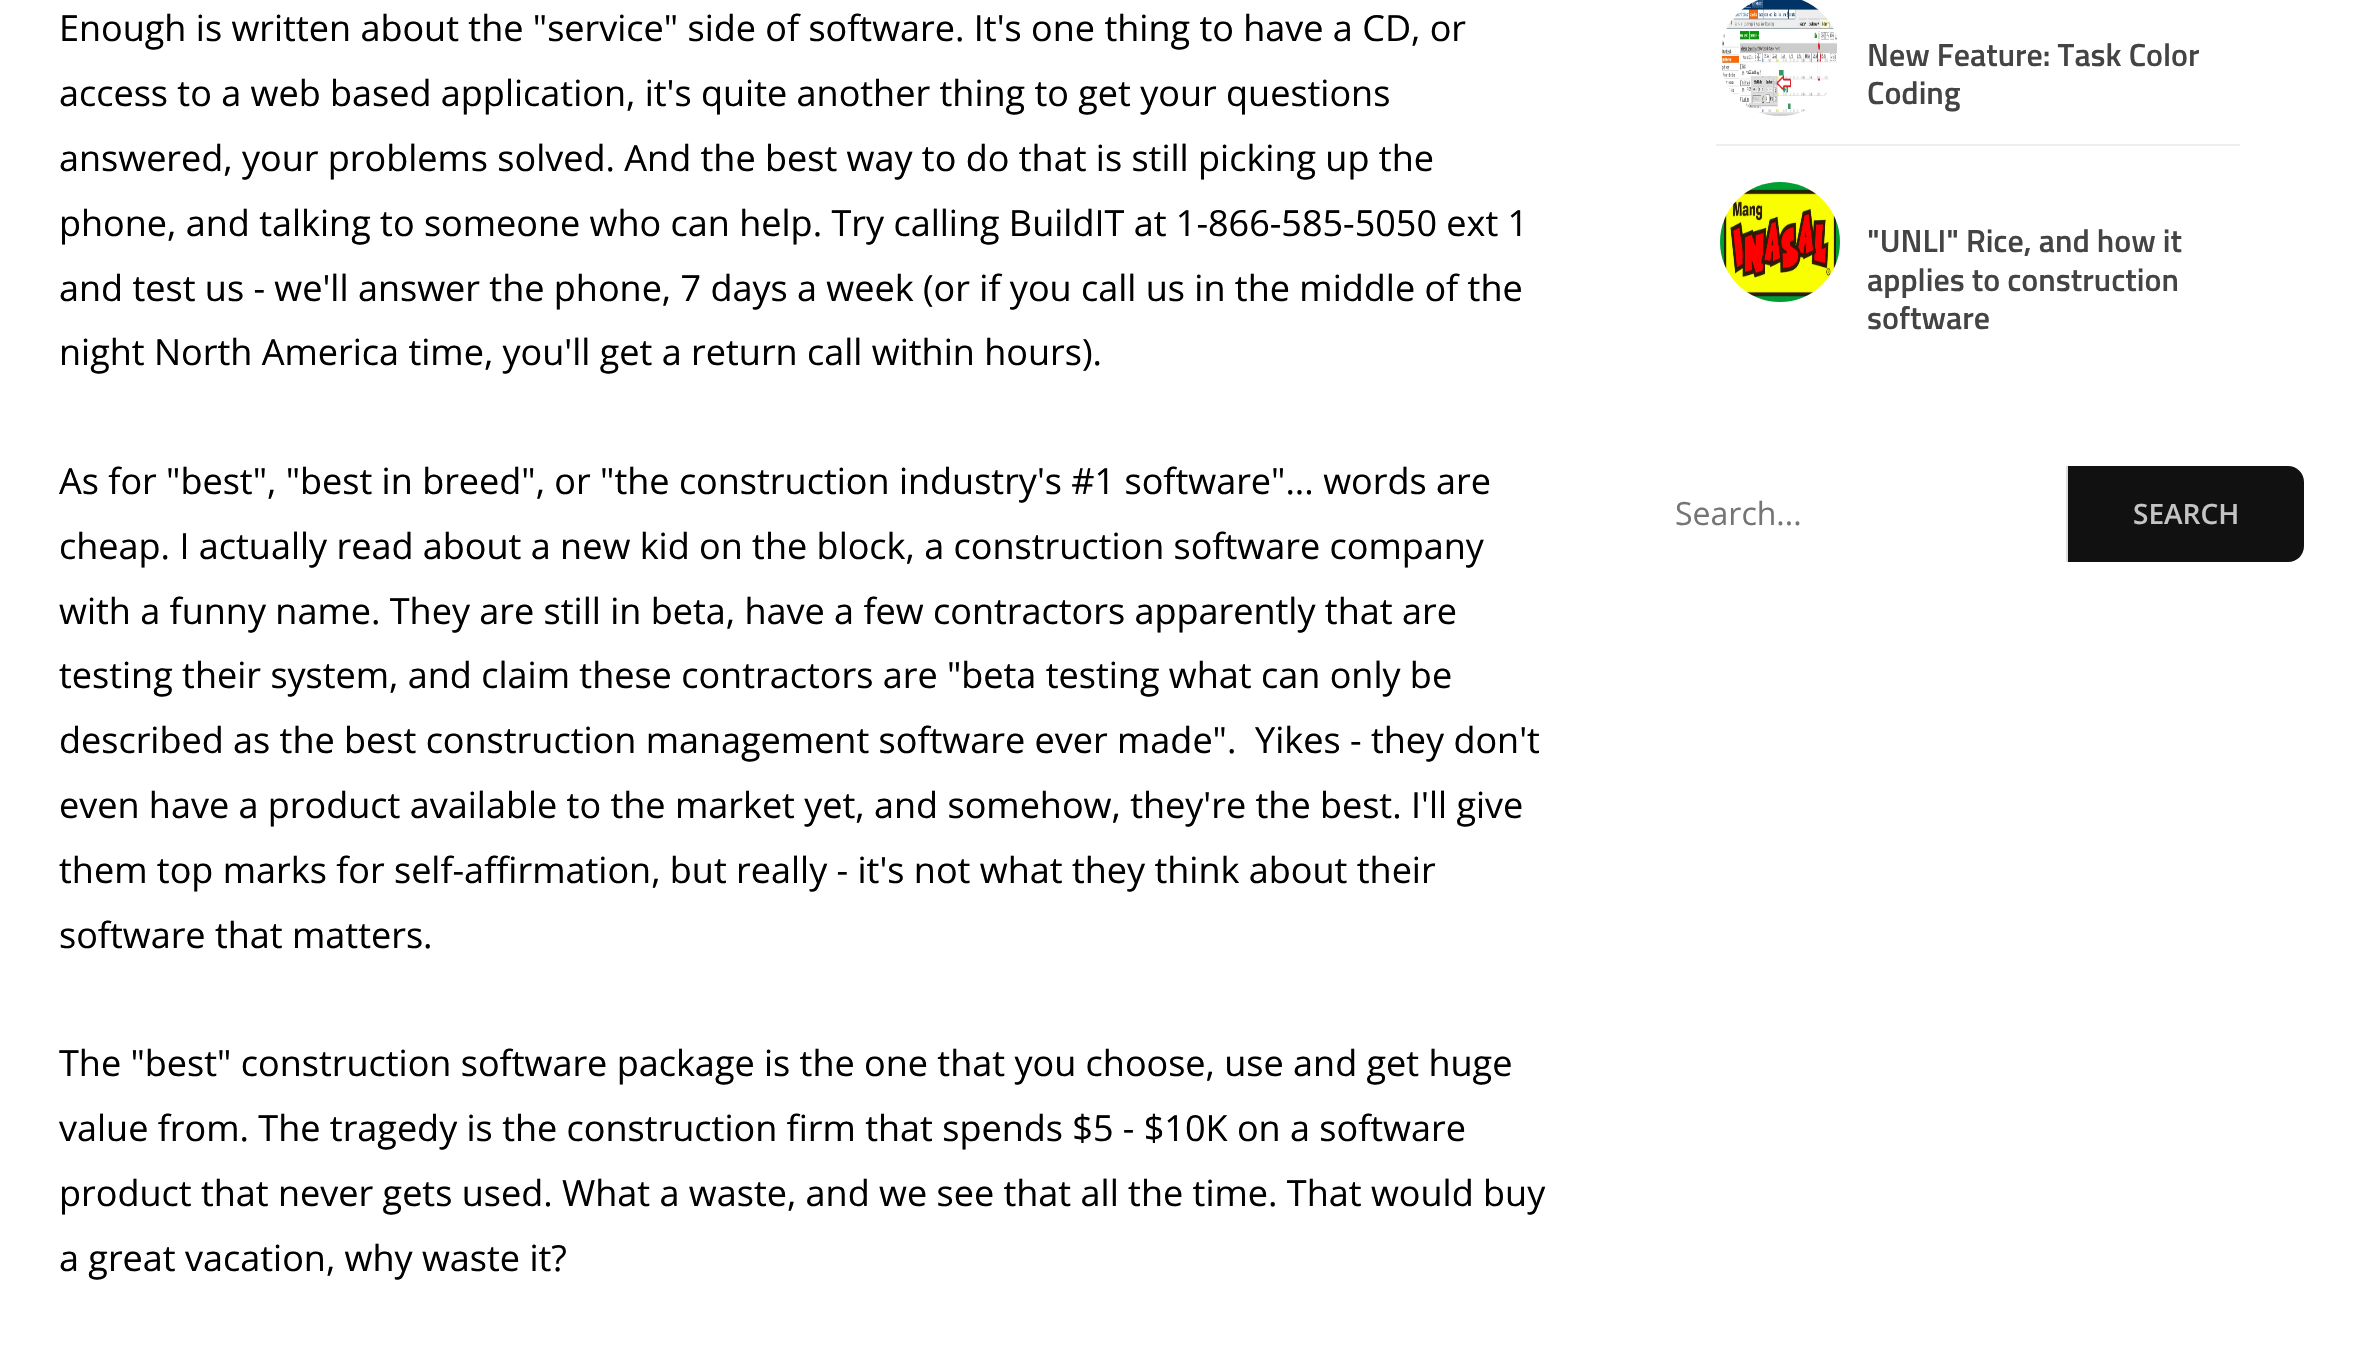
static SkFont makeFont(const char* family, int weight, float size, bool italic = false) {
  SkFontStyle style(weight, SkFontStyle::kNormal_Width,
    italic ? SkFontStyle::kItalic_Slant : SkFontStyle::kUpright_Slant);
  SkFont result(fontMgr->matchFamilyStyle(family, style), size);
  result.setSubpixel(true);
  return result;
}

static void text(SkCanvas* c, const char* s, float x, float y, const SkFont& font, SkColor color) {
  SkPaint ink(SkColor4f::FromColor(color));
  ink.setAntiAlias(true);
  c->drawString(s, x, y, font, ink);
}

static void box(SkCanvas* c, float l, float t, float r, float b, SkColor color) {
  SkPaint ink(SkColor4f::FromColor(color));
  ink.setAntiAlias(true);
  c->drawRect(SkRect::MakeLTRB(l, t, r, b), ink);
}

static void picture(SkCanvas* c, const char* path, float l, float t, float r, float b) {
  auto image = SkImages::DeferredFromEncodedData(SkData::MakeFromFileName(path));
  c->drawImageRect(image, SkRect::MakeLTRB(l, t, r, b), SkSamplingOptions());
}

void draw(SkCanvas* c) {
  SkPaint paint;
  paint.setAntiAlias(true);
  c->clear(0xffffffff);
  SkFont face1 = makeFont("Open Sans", 400, 36);
  text(c, "Enough is written about the \"service\" side of software. It's one thing to have a CD, or", 59, 41, face1, 0xff000000);
  text(c, "access to a web based application, it's quite another thing to get your questions", 59, 106, face1, 0xff000000);
  text(c, "answered, your problems solved. And the best way to do that is still picking up the", 59, 171, face1, 0xff000000);
  text(c, "phone, and talking to someone who can help. Try calling BuildIT at 1-866-585-5050 ext 1", 59, 236, face1, 0xff000000);
  text(c, "and test us - we'll answer the phone, 7 days a week (or if you call us in the middle of the", 59, 301, face1, 0xff000000);
  text(c, "night North America time, you'll get a return call within hours).", 59, 365, face1, 0xff000000);
  text(c, "As for \"best\", \"best in breed\", or \"the construction industry's #1 software\"... words are", 59, 494, face1, 0xff000000);
  text(c, "cheap. I actually read about a new kid on the block, a construction software company", 59, 559, face1, 0xff000000);
  text(c, "with a funny name. They are still in beta, have a few contractors apparently that are", 59, 624, face1, 0xff000000);
  text(c, "testing their system, and claim these contractors are \"beta testing what can only be", 59, 688, face1, 0xff000000);
  text(c, "described as the best construction management software ever made\".  Yikes - they don't", 59, 753, face1, 0xff000000);
  text(c, "even have a product available to the market yet, and somehow, they're the best. I'll give", 59, 818, face1, 0xff000000);
  text(c, "them top marks for self-affirmation, but really - it's not what they think about their", 59, 883, face1, 0xff000000);
  text(c, "software that matters.", 59, 948, face1, 0xff000000);
  text(c, "The \"best\" construction software package is the one that you choose, use and get huge", 59, 1076, face1, 0xff000000);
  text(c, "value from. The tragedy is the construction firm that spends $5 - $10K on a software", 59, 1141, face1, 0xff000000);
  text(c, "product that never gets used. What a waste, and we see that all the time. That would buy", 59, 1206, face1, 0xff000000);
  text(c, "a great vacation, why waste it?", 59, 1271, face1, 0xff000000);
  box(c, 1716, 144, 2240, 146, 0xffeeeeee);
  picture(c, "img_01.png", 1721, 0, 1838, 116);
  SkFont face2 = makeFont("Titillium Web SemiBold", 600, 32);
  text(c, "New Feature: Task Color", 1867, 66, face2, 0xff444444);
  text(c, "Coding", 1867, 104, face2, 0xff444444);
  picture(c, "img_02.png", 1720, 182, 1840, 302);
  text(c, "\"UNLI\" Rice, and how it", 1867, 252, face2, 0xff444444);
  text(c, "applies to construction", 1867, 291, face2, 0xff444444);
  text(c, "software", 1867, 329, face2, 0xff444444);
  SkFont face3 = makeFont("Open Sans", 400, 32);
  text(c, "Search...", 1675, 525, face3, 0xff757575);
  paint.setColor(0xff111111);
  c->drawPath(SkPathBuilder().moveTo(2066, 466).lineTo(2288, 466).cubicTo(2297, 466, 2304, 473, 2304, 482).lineTo(2304, 546).cubicTo(2304, 555, 2297, 562, 2288, 562).lineTo(2066, 562).close().detach(), paint);
  box(c, 2066, 466, 2068, 562, 0xffdddddd);
  SkFont face4 = makeFont("Open Sans", 600, 28);
  text(c, "SEARCH", 2133, 524, face4, 0xffc4c4c4);
}
